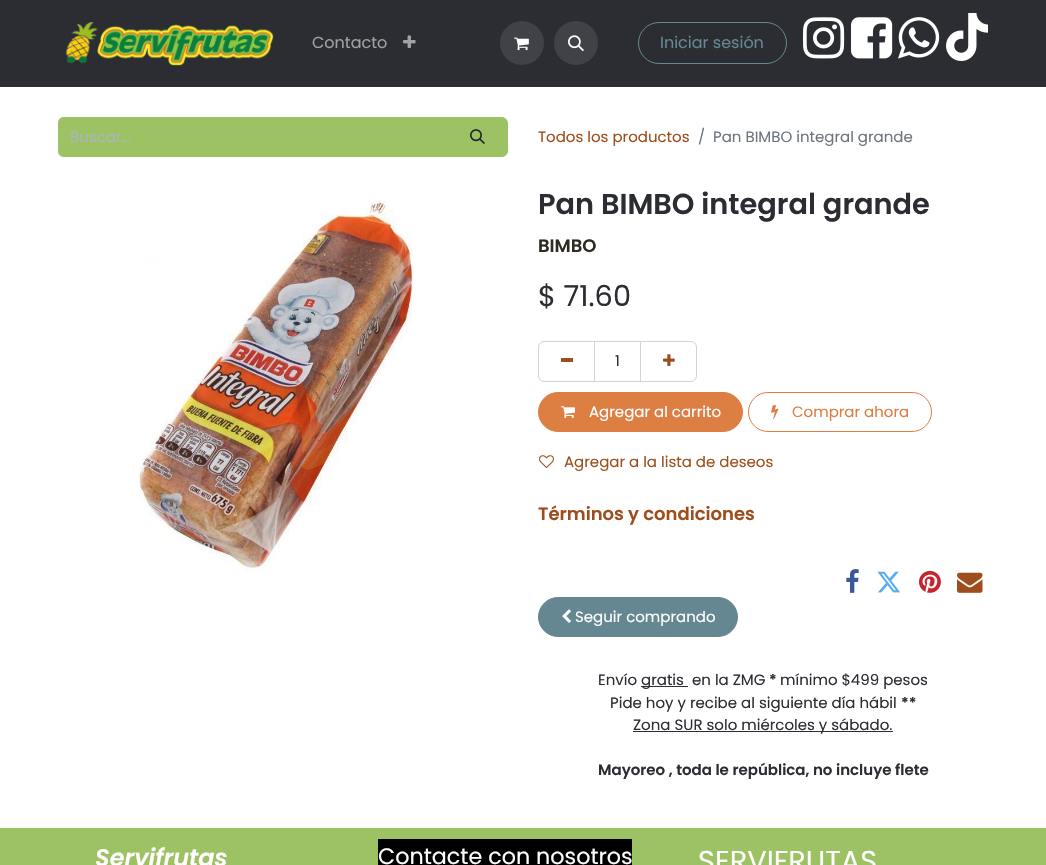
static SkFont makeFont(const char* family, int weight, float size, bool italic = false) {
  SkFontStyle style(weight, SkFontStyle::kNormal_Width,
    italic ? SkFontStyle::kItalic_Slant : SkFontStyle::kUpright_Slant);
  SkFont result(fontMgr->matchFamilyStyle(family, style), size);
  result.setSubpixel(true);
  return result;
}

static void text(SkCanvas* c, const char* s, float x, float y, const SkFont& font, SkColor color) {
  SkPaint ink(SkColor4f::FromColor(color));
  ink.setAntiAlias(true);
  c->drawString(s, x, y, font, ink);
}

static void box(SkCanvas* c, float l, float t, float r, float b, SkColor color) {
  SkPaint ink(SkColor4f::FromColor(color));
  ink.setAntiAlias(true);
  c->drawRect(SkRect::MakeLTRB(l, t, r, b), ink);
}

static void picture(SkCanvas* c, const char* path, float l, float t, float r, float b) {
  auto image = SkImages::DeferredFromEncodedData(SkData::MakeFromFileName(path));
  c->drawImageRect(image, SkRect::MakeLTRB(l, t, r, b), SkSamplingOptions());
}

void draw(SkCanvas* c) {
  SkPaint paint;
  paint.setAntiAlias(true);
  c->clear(0xffffffff);
  box(c, 0, 0, 1046, 87, 0xff2b2d33);
  picture(c, "img_01.png", 65, 22, 274, 66);
  SkFont face1 = makeFont("Poppins", 400, 16);
  text(c, "Contacto", 312, 48, face1, 0xffa0a1a3);
  picture(c, "img_02.png", 403, 35, 416, 48);
  paint.setColor(0xff404247);
  c->drawCircle(522, 43, 22, paint);
  picture(c, "img_03.png", 514, 37, 529, 51);
  c->drawCircle(576, 43, 22, paint);
  picture(c, "img_04.png", 568, 35, 584, 52);
  paint.setStyle(SkPaint::kStroke_Style);
  paint.setStrokeWidth(1);
  paint.setColor(0xff658791);
  c->drawRoundRect(SkRect::MakeLTRB(638.5f, 22.5f, 786.5f, 63.5f), 20.5f, 20.5f, paint);
  text(c, "Iniciar sesión", 660, 48, face1, 0xff658791);
  picture(c, "img_05.png", 803, 17, 845, 59);
  picture(c, "img_06.png", 851, 17, 893, 59);
  picture(c, "img_07.png", 898, 17, 940, 59);
  picture(c, "img_08.png", 946, 13, 988, 61);
  paint.setStyle(SkPaint::kFill_Style);
  paint.setColor(0xff9cc264);
  c->drawPath(SkPathBuilder().moveTo(64, 117).lineTo(449, 117).lineTo(449, 157).lineTo(64, 157).cubicTo(60.5f, 157, 58, 154.5f, 58, 151).lineTo(58, 123).cubicTo(58, 119.5f, 60.5f, 117, 64, 117).close().detach(), paint);
  SkFont face2 = makeFont("Poppins", 400, 15);
  text(c, "Buscar…", 70, 142, face2, 0xffadb5bd);
  c->drawPath(SkPathBuilder().moveTo(448.5f, 117.5f).lineTo(502, 117.5f).cubicTo(505, 117.5f, 507.5f, 120, 507.5f, 123).lineTo(507.5f, 151).cubicTo(507.5f, 154, 505, 156.5f, 502, 156.5f).lineTo(448.5f, 156.5f).close().detach(), paint);
  paint.setStyle(SkPaint::kStroke_Style);
  c->drawPath(SkPathBuilder().moveTo(448.5f, 117.5f).lineTo(502, 117.5f).cubicTo(505, 117.5f, 507.5f, 120, 507.5f, 123).lineTo(507.5f, 151).cubicTo(507.5f, 154, 505, 156.5f, 502, 156.5f).lineTo(448.5f, 156.5f).close().detach(), paint);
  picture(c, "img_09.png", 470, 129, 485, 144);
  text(c, "Todos los productos", 538, 142, face2, 0xff9e4e1c);
  text(c, "/", 698, 142, face2, 0xff6c757d);
  text(c, "Pan BIMBO integral grande", 713, 142, face2, 0xff6c757d);
  picture(c, "img_10.png", 138, 200, 413, 571);
  SkFont face3 = makeFont("Poppins", 600, 28.8f);
  text(c, "Pan BIMBO integral grande", 538, 214, face3, 0xff2b2d33);
  SkFont face4 = makeFont("Poppins", 600, 18);
  text(c, "BIMBO", 538, 252, face4, 0xff2d2b22);
  SkFont face5 = makeFont("Poppins", 400, 28.8f);
  text(c, "$ 71.60", 538, 306, face5, 0xff2b2d33);
  paint.setColor(0xffced4da);
  c->drawRect(SkRect::MakeLTRB(594.5f, 341.5f, 640.5f, 381.5f), paint);
  c->drawPath(SkPathBuilder().moveTo(544, 341.5f).lineTo(594.5f, 341.5f).lineTo(594.5f, 381.5f).lineTo(544, 381.5f).cubicTo(541, 381.5f, 538.5f, 379, 538.5f, 376).lineTo(538.5f, 347).cubicTo(538.5f, 344, 541, 341.5f, 544, 341.5f).close().detach(), paint);
  box(c, 561, 358, 573, 362, 0xff9e4e1c);
  text(c, "1", 615, 366, face2, 0xff2b2d33);
  c->drawPath(SkPathBuilder().moveTo(640.5f, 341.5f).lineTo(691, 341.5f).cubicTo(694, 341.5f, 696.5f, 344, 696.5f, 347).lineTo(696.5f, 376).cubicTo(696.5f, 379, 694, 381.5f, 691, 381.5f).lineTo(640.5f, 381.5f).close().detach(), paint);
  picture(c, "img_11.png", 663, 354, 675, 366);
  paint.setStyle(SkPaint::kFill_Style);
  paint.setColor(0xffdd7e43);
  c->drawRoundRect(SkRect::MakeLTRB(538.5f, 392.5f, 742.5f, 431.5f), 19.5f, 19.5f, paint);
  paint.setStyle(SkPaint::kStroke_Style);
  c->drawRoundRect(SkRect::MakeLTRB(538.5f, 392.5f, 742.5f, 431.5f), 19.5f, 19.5f, paint);
  picture(c, "img_12.png", 561, 406, 575, 419);
  text(c, "Agregar al carrito", 589, 417, face2, 0xffffffff);
  c->drawRoundRect(SkRect::MakeLTRB(748.5f, 392.5f, 931.5f, 431.5f), 19.5f, 19.5f, paint);
  picture(c, "img_13.png", 771, 405, 779, 420);
  text(c, "Comprar ahora", 792, 417, face2, 0xffdd7e43);
  picture(c, "img_14.png", 539, 455, 554, 468);
  text(c, "Agregar a la lista de deseos", 564, 467, face2, 0xff9e4e1c);
  text(c, "Términos y condiciones", 538, 520, face4, 0xff9e4e1c);
  picture(c, "img_15.png", 846, 569, 859, 593);
  picture(c, "img_16.png", 877, 571, 900, 593);
  picture(c, "img_17.png", 919, 570, 941, 593);
  picture(c, "img_18.png", 957, 572, 983, 593);
  paint.setStyle(SkPaint::kFill_Style);
  paint.setColor(0xff658791);
  c->drawRoundRect(SkRect::MakeLTRB(538.5f, 597.5f, 737.5f, 636.5f), 19.5f, 19.5f, paint);
  paint.setStyle(SkPaint::kStroke_Style);
  c->drawRoundRect(SkRect::MakeLTRB(538.5f, 597.5f, 737.5f, 636.5f), 19.5f, 19.5f, paint);
  picture(c, "img_19.png", 562, 609, 571, 623);
  text(c, "Seguir comprando", 575, 622, face2, 0xffffffff);
  text(c, "Envío", 598, 685, face2, 0xff2b2d33);
  box(c, 641, 686, 688, 687, 0xff2b2d33);
  text(c, "gratis", 641, 685, face2, 0xff2b2d33);
  text(c, "en la ZMG", 692, 685, face2, 0xff2b2d33);
  SkFont face6 = makeFont("Poppins", 600, 15);
  text(c, "*", 769, 685, face6, 0xff2b2d33);
  text(c, "mínimo $499 pesos", 780, 685, face2, 0xff2b2d33);
  text(c, "Pide hoy y recibe al siguiente día hábil", 610, 708, face2, 0xff2b2d33);
  text(c, "**", 901, 708, face6, 0xff2b2d33);
  box(c, 633, 731, 893, 732, 0xff2b2d33);
  text(c, "Zona SUR solo miércoles y sábado.", 633, 730, face2, 0xff2b2d33);
  text(c, "Mayoreo , toda le república, no incluye flete", 598, 775, face6, 0xff2b2d33);
  box(c, 0, 828, 1046, 865, 0xff9cc264);
  SkFont face7 = makeFont("Poppins", 600, 24, true);
  text(c, "Servifrutas", 95, 866, face7, 0xffffffff);
  box(c, 378, 839, 632, 865, 0xff000000);
  SkFont face8 = makeFont("Poppins", 400, 22.25f);
  text(c, "Contacte con nosotros", 378, 864, face8, 0xffffffff);
  text(c, "SERVIFRUTAS", 698, 871, face5, 0xffffffff);
}
